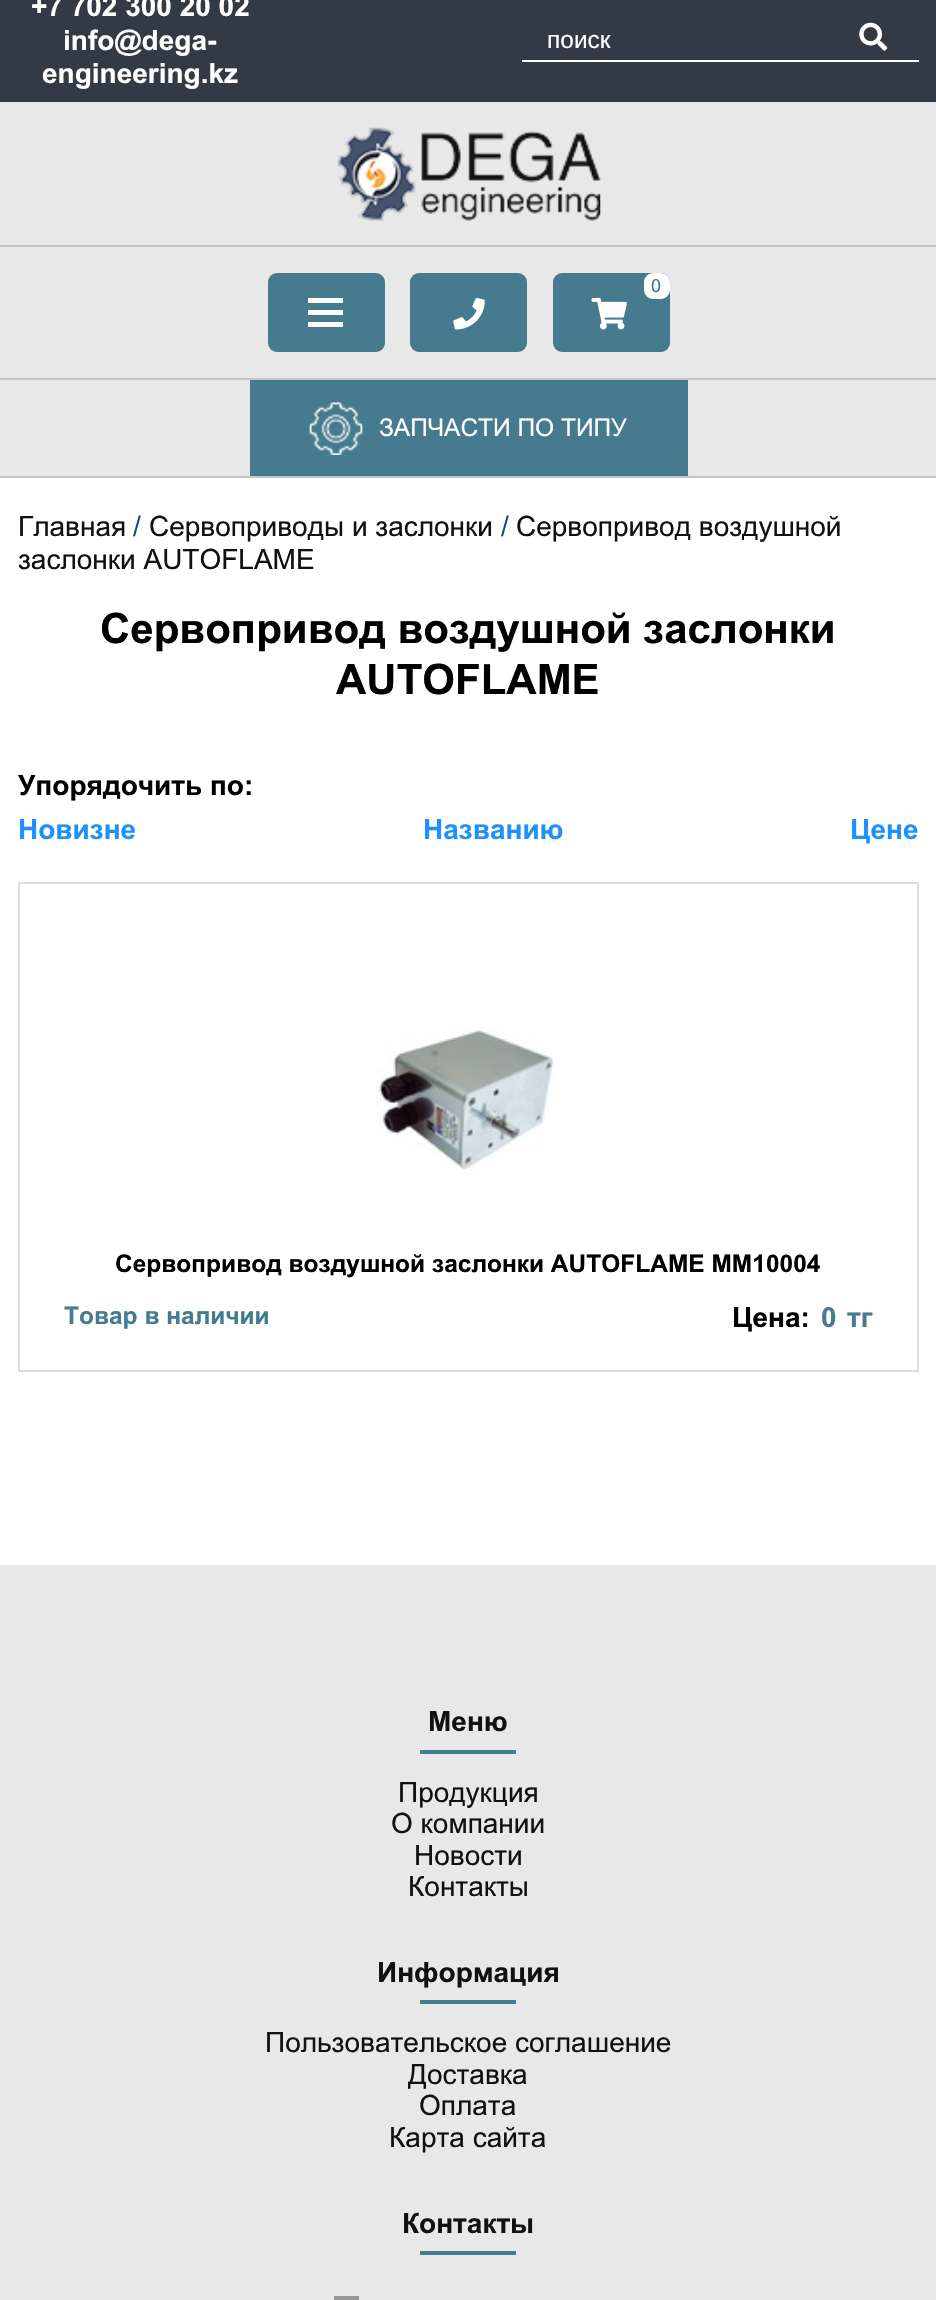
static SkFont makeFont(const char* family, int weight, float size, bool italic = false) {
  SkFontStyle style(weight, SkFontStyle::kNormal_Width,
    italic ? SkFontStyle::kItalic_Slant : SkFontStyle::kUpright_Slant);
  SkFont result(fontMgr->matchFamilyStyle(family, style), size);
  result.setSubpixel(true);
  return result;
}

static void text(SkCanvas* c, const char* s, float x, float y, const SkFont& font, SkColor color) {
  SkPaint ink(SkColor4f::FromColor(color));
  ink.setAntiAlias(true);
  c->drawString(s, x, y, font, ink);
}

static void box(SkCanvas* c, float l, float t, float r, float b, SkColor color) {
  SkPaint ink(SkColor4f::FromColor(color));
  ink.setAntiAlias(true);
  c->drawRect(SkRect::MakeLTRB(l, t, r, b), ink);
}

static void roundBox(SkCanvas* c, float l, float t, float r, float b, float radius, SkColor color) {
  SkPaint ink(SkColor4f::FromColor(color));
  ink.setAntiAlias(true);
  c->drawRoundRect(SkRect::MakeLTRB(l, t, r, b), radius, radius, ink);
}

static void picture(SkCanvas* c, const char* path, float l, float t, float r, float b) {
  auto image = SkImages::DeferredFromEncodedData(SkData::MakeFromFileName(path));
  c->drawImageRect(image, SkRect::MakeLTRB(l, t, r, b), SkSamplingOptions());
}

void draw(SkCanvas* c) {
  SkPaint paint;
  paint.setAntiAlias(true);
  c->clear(0xffffffff);
  box(c, 0, 0, 936, 102, 0xff323a45);
  SkFont face1 = makeFont("Arial", 700, 28);
  text(c, "+7 702 300 20 02", 31, 16, face1, 0xffffffff);
  text(c, "info@dega-", 63, 50, face1, 0xffffffff);
  text(c, "engineering.kz", 42, 83, face1, 0xffffffff);
  box(c, 522, 60, 919, 62, 0xffffffff);
  SkFont face2 = makeFont("Liberation Sans", 400, 24.5f);
  text(c, "поиск", 547, 48, face2, 0xffffffff);
  picture(c, "img_01.png", 859, 22, 888, 51);
  box(c, 0, 102, 936, 378, 0xffe8e8e8);
  box(c, 0, 245, 936, 247, 0xffc6c6c6);
  picture(c, "img_02.png", 337, 127, 601, 221);
  roundBox(c, 268, 273, 385, 352, 9, 0xff467a8f);
  box(c, 308, 310, 343, 315, 0xffffffff);
  box(c, 308, 298, 343, 303, 0xffffffff);
  box(c, 308, 322, 343, 327, 0xffffffff);
  roundBox(c, 410, 273, 527, 352, 9, 0xff467a8f);
  picture(c, "img_03.png", 453, 298, 485, 330);
  roundBox(c, 553, 273, 670, 352, 9, 0xff467a8f);
  roundBox(c, 644, 273, 670, 299, 9, 0xffffffff);
  SkFont face3 = makeFont("Arial", 400, 18);
  text(c, "0", 651, 292, face3, 0xff467a8f);
  picture(c, "img_04.png", 591, 297, 627, 330);
  box(c, 0, 380, 936, 476, 0xffe8e8e8);
  box(c, 0, 378, 936, 380, 0xffc6c6c6);
  box(c, 0, 476, 936, 478, 0xffc6c6c6);
  box(c, 250, 380, 688, 476, 0xff467a8f);
  picture(c, "img_05.png", 309, 402, 363, 455);
  SkFont face4 = makeFont("Arial", 400, 24.5f);
  text(c, "ЗАПЧАСТИ ПО ТИПУ", 379, 436, face4, 0xffffffff);
  SkFont face5 = makeFont("Arial", 400, 28);
  text(c, "Главная", 18, 536, face5, 0xff111111);
  text(c, "/", 133, 536, face5, 0xff1a4a79);
  text(c, "Сервоприводы и заслонки", 149, 536, face5, 0xff111111);
  text(c, "/", 501, 536, face5, 0xff1a4a79);
  text(c, "Сервопривод воздушной", 516, 536, face5, 0xff111111);
  text(c, "заслонки AUTOFLAME", 18, 569, face5, 0xff111111);
  SkFont face6 = makeFont("Arial", 700, 42);
  text(c, "Сервопривод воздушной заслонки", 100, 643, face6, 0xff000000);
  text(c, "AUTOFLAME", 336, 694, face6, 0xff000000);
  text(c, "Упорядочить по:", 18, 795, face1, 0xff000000);
  text(c, "Новизне", 18, 839, face1, 0xff1e90ff);
  text(c, "Названию", 423, 839, face1, 0xff1e90ff);
  text(c, "Цене", 850, 839, face1, 0xff1e90ff);
  paint.setStyle(SkPaint::kStroke_Style);
  paint.setStrokeWidth(2);
  paint.setColor(0xffdddddd);
  c->drawRect(SkRect::MakeLTRB(19, 883, 918, 1371), paint);
  picture(c, "img_06.png", 375, 1026, 556, 1175);
  SkFont face7 = makeFont("Arial", 700, 24.5f);
  text(c, "Сервопривод воздушной заслонки AUTOFLAME MM10004", 115, 1272, face7, 0xff000000);
  text(c, "Товар в наличии", 64, 1324, face7, 0xff467a8f);
  text(c, "Цена:", 732, 1327, face1, 0xff000000);
  text(c, "0", 821, 1327, face1, 0xff467a8f);
  text(c, "тг", 847, 1327, face1, 0xff467a8f);
  box(c, 0, 1565, 936, 2300, 0xffe8e8e8);
  text(c, "Меню", 428, 1731, face1, 0xff111111);
  box(c, 420, 1750, 516, 1754, 0xff467a8f);
  text(c, "Продукция", 398, 1802, face5, 0xff111111);
  text(c, "О компании", 391, 1833, face5, 0xff111111);
  text(c, "Новости", 414, 1865, face5, 0xff111111);
  text(c, "Контакты", 408, 1896, face5, 0xff111111);
  text(c, "Информация", 377, 1982, face1, 0xff111111);
  box(c, 420, 2000, 516, 2004, 0xff467a8f);
  text(c, "Пользовательское соглашение", 265, 2052, face5, 0xff111111);
  text(c, "Доставка", 408, 2084, face5, 0xff111111);
  text(c, "Оплата", 419, 2115, face5, 0xff111111);
  text(c, "Карта сайта", 389, 2147, face5, 0xff111111);
  text(c, "Контакты", 402, 2233, face1, 0xff111111);
  box(c, 420, 2251, 516, 2255, 0xff467a8f);
  box(c, 334, 2296, 359, 2300, 0xff979797);
}
